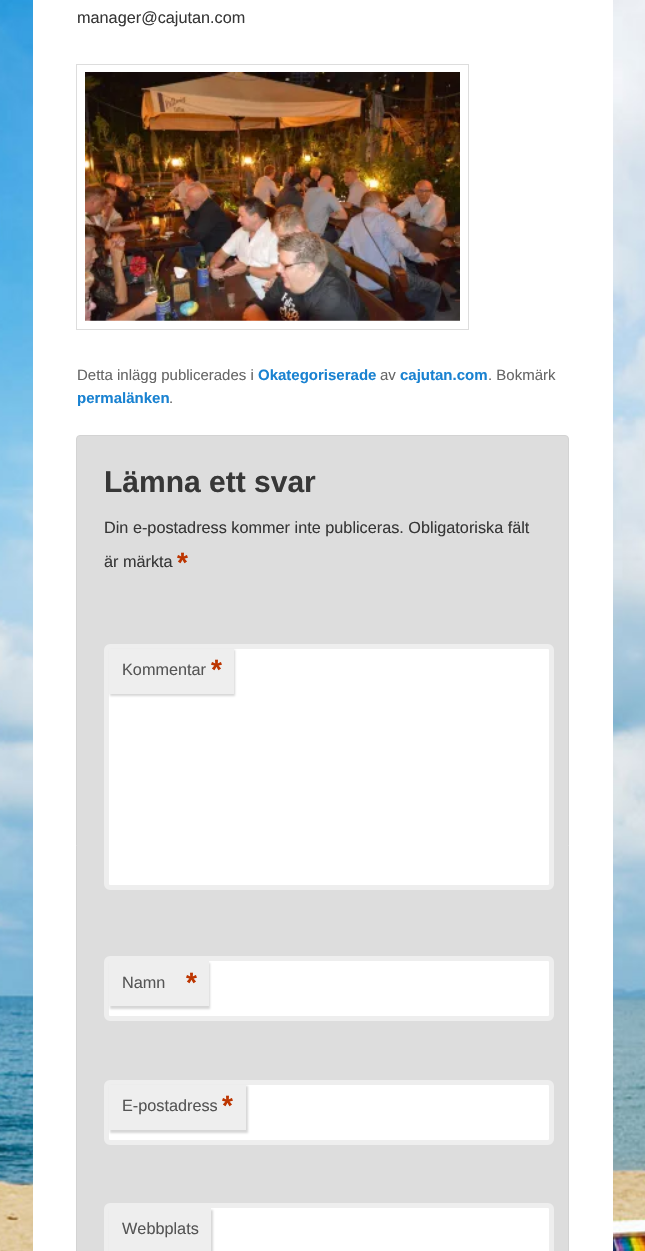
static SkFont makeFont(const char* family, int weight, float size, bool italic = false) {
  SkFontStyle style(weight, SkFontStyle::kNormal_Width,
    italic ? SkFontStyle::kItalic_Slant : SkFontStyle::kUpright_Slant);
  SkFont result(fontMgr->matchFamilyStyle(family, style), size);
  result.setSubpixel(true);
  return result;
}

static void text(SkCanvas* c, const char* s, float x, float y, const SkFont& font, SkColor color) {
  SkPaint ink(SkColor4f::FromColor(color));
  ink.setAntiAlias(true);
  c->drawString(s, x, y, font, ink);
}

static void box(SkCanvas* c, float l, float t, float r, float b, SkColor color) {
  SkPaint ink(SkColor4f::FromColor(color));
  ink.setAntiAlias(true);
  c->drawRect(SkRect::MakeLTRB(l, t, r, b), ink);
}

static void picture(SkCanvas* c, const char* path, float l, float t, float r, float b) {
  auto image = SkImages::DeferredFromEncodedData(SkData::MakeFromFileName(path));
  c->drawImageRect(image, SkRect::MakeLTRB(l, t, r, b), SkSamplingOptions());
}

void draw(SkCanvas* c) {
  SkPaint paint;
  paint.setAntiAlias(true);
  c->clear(0xffffffff);
  picture(c, "img_01.png", 0, 0, 645, 1251);
  box(c, 33, 0, 613, 1251, 0xffffffff);
  SkFont face1 = makeFont("Liberation Sans", 400, 16.25f);
  text(c, "manager@cajutan.com", 77, 23, face1, 0xff373737);
  paint.setStyle(SkPaint::kStroke_Style);
  paint.setStrokeWidth(1);
  paint.setColor(0xffdddddd);
  c->drawRect(SkRect::MakeLTRB(76.5f, 64.5f, 468.5f, 329.5f), paint);
  picture(c, "img_02.png", 85, 72, 460, 321);
  SkFont face2 = makeFont("Liberation Sans", 400, 15);
  text(c, "Detta inlägg publicerades i", 77, 380, face2, 0xff666666);
  SkFont face3 = makeFont("Liberation Sans", 700, 15);
  text(c, "Okategoriserade", 258, 380, face3, 0xff1982d1);
  text(c, "av", 380, 380, face2, 0xff666666);
  text(c, "cajutan.com", 400, 380, face3, 0xff1982d1);
  text(c, ". Bokmärk", 488, 380, face2, 0xff666666);
  text(c, "permalänken", 77, 403, face3, 0xff1982d1);
  text(c, ".", 169, 403, face2, 0xff666666);
  paint.setStyle(SkPaint::kFill_Style);
  c->drawRoundRect(SkRect::MakeLTRB(76.5f, 435.5f, 568.5f, 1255.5f), 3.5f, 3.5f, paint);
  paint.setStyle(SkPaint::kStroke_Style);
  paint.setColor(0xffd3d3d3);
  c->drawRoundRect(SkRect::MakeLTRB(76.5f, 435.5f, 568.5f, 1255.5f), 3.5f, 3.5f, paint);
  SkFont face4 = makeFont("Liberation Sans", 700, 30);
  text(c, "Lämna ett svar", 104, 492, face4, 0xff373737);
  text(c, "Din e-postadress kommer inte publiceras. Obligatoriska fält", 104, 533, face1, 0xff373737);
  text(c, "är märkta", 104, 567, face1, 0xff373737);
  SkFont face5 = makeFont("Liberation Sans", 700, 28);
  text(c, "*", 177, 572, face5, 0xffbd3500);
  paint.setStyle(SkPaint::kFill_Style);
  paint.setColor(0xffffffff);
  c->drawRoundRect(SkRect::MakeLTRB(106.5f, 646.5f, 551.5f, 887.5f), 3.5f, 3.5f, paint);
  paint.setStyle(SkPaint::kStroke_Style);
  paint.setStrokeWidth(5);
  paint.setColor(0xffeeeeee);
  c->drawRoundRect(SkRect::MakeLTRB(106.5f, 646.5f, 551.5f, 887.5f), 3.5f, 3.5f, paint);
  paint.setStyle(SkPaint::kFill_Style);
  paint.setColor(0xcccccccc);
  paint.setMaskFilter(SkMaskFilter::MakeBlur(kNormal_SkBlurStyle, 1));
  c->drawRect(SkRect::MakeLTRB(110, 650, 235, 696), paint);
  paint.setMaskFilter(nullptr);
  box(c, 109, 649, 234, 694, 0xffeeeeee);
  text(c, "Kommentar", 122, 675, face1, 0xff555555);
  text(c, "*", 211, 679, face5, 0xffbd3500);
  paint.setColor(0xffffffff);
  c->drawRoundRect(SkRect::MakeLTRB(106.5f, 958.5f, 551.5f, 1018.5f), 3.5f, 3.5f, paint);
  paint.setStyle(SkPaint::kStroke_Style);
  paint.setColor(0xffeeeeee);
  c->drawRoundRect(SkRect::MakeLTRB(106.5f, 958.5f, 551.5f, 1018.5f), 3.5f, 3.5f, paint);
  paint.setStyle(SkPaint::kFill_Style);
  paint.setColor(0xcccccccc);
  paint.setMaskFilter(SkMaskFilter::MakeBlur(kNormal_SkBlurStyle, 1));
  c->drawRect(SkRect::MakeLTRB(110, 963, 210, 1009), paint);
  paint.setMaskFilter(nullptr);
  box(c, 109, 961, 209, 1006, 0xffeeeeee);
  text(c, "Namn", 122, 988, face1, 0xff555555);
  text(c, "*", 186, 992, face5, 0xffbd3500);
  paint.setColor(0xffffffff);
  c->drawRoundRect(SkRect::MakeLTRB(106.5f, 1082.5f, 551.5f, 1142.5f), 3.5f, 3.5f, paint);
  paint.setStyle(SkPaint::kStroke_Style);
  paint.setColor(0xffeeeeee);
  c->drawRoundRect(SkRect::MakeLTRB(106.5f, 1082.5f, 551.5f, 1142.5f), 3.5f, 3.5f, paint);
  paint.setStyle(SkPaint::kFill_Style);
  paint.setColor(0xcccccccc);
  paint.setMaskFilter(SkMaskFilter::MakeBlur(kNormal_SkBlurStyle, 1));
  c->drawRect(SkRect::MakeLTRB(110, 1086, 248, 1133), paint);
  paint.setMaskFilter(nullptr);
  box(c, 109, 1085, 246, 1130, 0xffeeeeee);
  text(c, "E-postadress", 122, 1111, face1, 0xff555555);
  text(c, "*", 222, 1115, face5, 0xffbd3500);
  paint.setColor(0xffffffff);
  c->drawRoundRect(SkRect::MakeLTRB(106.5f, 1205.5f, 551.5f, 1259.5f), 3.5f, 3.5f, paint);
  paint.setStyle(SkPaint::kStroke_Style);
  paint.setColor(0xffeeeeee);
  c->drawRoundRect(SkRect::MakeLTRB(106.5f, 1205.5f, 551.5f, 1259.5f), 3.5f, 3.5f, paint);
  paint.setStyle(SkPaint::kFill_Style);
  paint.setColor(0xcccccccc);
  paint.setMaskFilter(SkMaskFilter::MakeBlur(kNormal_SkBlurStyle, 1));
  c->drawRect(SkRect::MakeLTRB(110, 1210, 213, 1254), paint);
  paint.setMaskFilter(nullptr);
  box(c, 109, 1208, 211, 1251, 0xffeeeeee);
  text(c, "Webbplats", 122, 1234, face1, 0xff555555);
}
